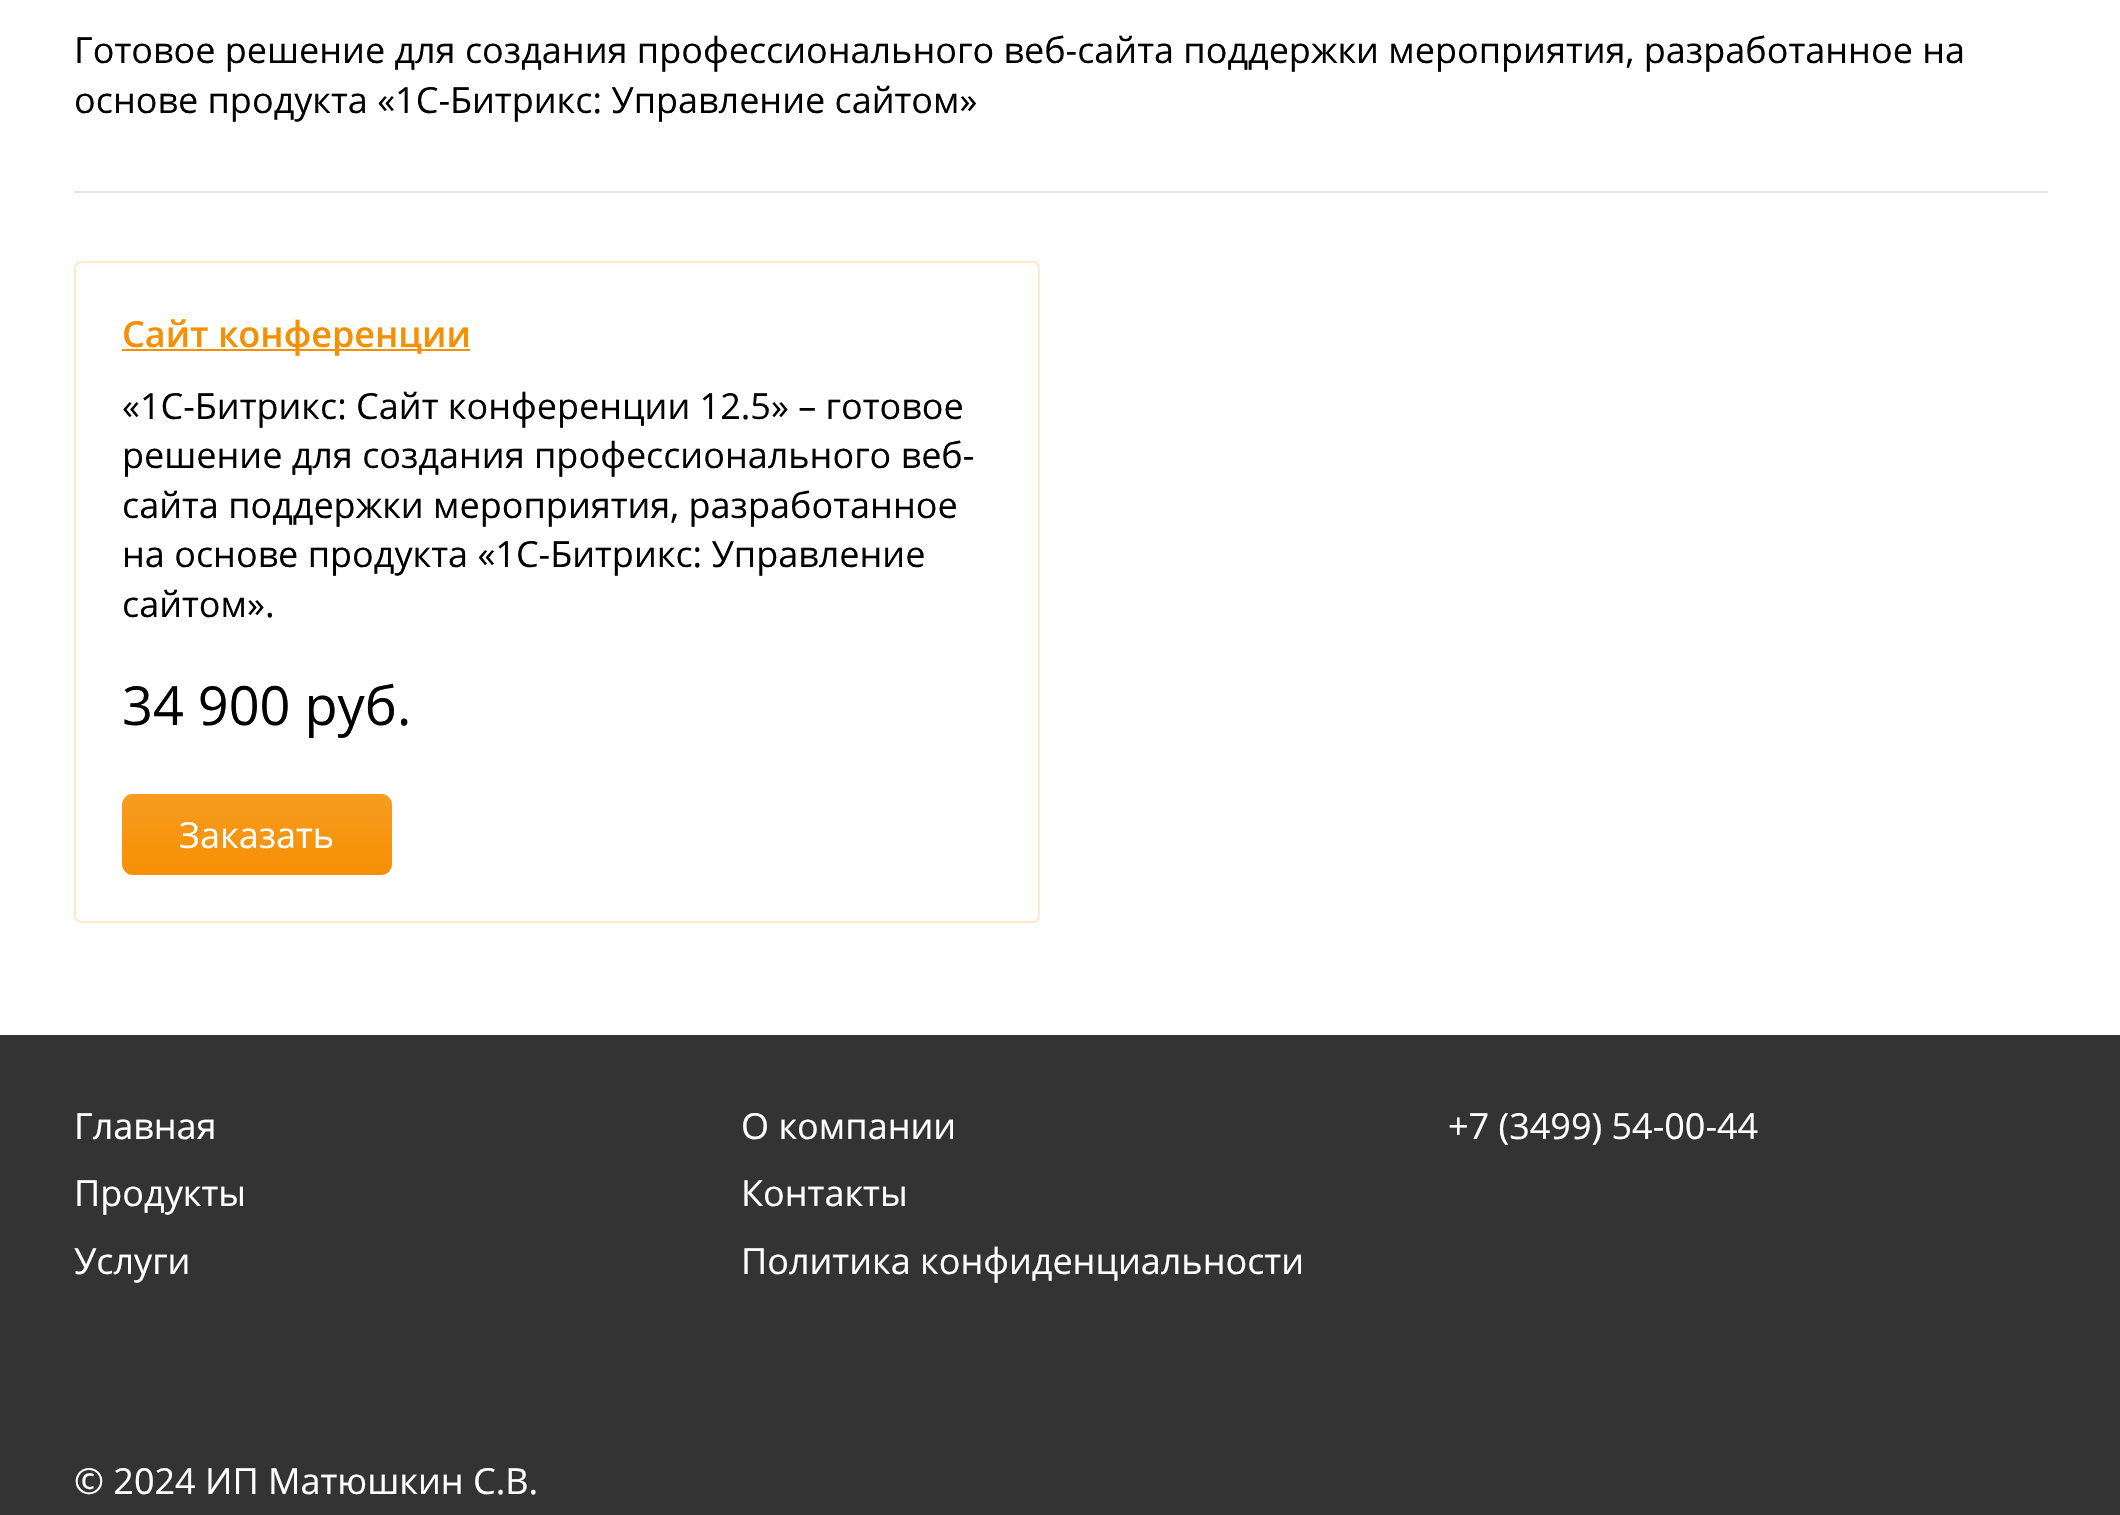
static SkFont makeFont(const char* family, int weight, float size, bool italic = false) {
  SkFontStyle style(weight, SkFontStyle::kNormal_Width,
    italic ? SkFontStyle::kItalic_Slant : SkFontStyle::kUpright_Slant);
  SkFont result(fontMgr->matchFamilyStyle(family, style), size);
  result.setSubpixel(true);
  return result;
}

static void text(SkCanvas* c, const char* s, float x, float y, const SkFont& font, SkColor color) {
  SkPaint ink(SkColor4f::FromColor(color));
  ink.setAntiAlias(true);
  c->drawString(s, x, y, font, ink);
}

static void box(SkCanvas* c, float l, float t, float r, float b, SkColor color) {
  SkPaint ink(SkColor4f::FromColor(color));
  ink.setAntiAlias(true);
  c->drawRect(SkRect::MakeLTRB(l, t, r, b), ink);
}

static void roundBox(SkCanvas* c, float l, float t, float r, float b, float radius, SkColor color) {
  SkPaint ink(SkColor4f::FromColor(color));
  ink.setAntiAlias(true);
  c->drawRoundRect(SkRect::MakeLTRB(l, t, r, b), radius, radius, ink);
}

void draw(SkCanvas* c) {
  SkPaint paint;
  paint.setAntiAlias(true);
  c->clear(0xffffffff);
  SkFont face1 = makeFont("Open Sans", 400, 36);
  text(c, "Готовое решение для создания профессионального веб-сайта поддержки мероприятия, разработанное на", 74, 63, face1, 0xff000000);
  text(c, "основе продукта «1С-Битрикс: Управление сайтом»", 74, 113, face1, 0xff000000);
  box(c, 74, 191, 2048, 193, 0xffe6e6e6);
  paint.setStyle(SkPaint::kStroke_Style);
  paint.setStrokeWidth(2);
  paint.setColor(0xfffde9cc);
  c->drawRoundRect(SkRect::MakeLTRB(75, 262, 1039, 922), 6, 6, paint);
  box(c, 122, 349, 470, 351, 0xfff78f02);
  SkFont face2 = makeFont("Open Sans", 600, 36);
  text(c, "Сайт конференции", 122, 347, face2, 0xfff78f02);
  text(c, "«1С-Битрикс: Сайт конференции 12.5» – готовое", 122, 419, face1, 0xff000000);
  text(c, "решение для создания профессионального веб-", 122, 468, face1, 0xff000000);
  text(c, "сайта поддержки мероприятия, разработанное", 122, 518, face1, 0xff000000);
  text(c, "на основе продукта «1С-Битрикс: Управление", 122, 567, face1, 0xff000000);
  text(c, "сайтом».", 122, 617, face1, 0xff000000);
  SkFont face3 = makeFont("Open Sans", 400, 54);
  text(c, "34 900 руб.", 122, 725, face3, 0xff000000);
  roundBox(c, 122, 794, 392, 875, 11, 0xfff78f02);
  paint.setStyle(SkPaint::kFill_Style);
  {
    const SkColor colors[] = {0x1fffffff, 0x00ffffff};
    const float stops[] = {0, 1};
    const SkPoint ends[] = {{257, 794}, {257, 875}};
    paint.setShader(SkGradientShader::MakeLinear(ends, colors, stops, 2, SkTileMode::kClamp));
    paint.setAlpha(255);
  }
  c->drawRoundRect(SkRect::MakeLTRB(122, 794, 392, 875), 11, 11, paint);
  text(c, "Заказать", 179, 848, face1, 0xffffffff);
  box(c, 0, 1035, 2120, 1515, 0xff333333);
  text(c, "Главная", 74, 1139, face1, 0xffffffff);
  text(c, "О компании", 741, 1139, face1, 0xffffffff);
  text(c, "Продукты", 74, 1206, face1, 0xffffffff);
  text(c, "Контакты", 741, 1206, face1, 0xffffffff);
  text(c, "Услуги", 74, 1274, face1, 0xffffffff);
  text(c, "Политика конфиденциальности", 741, 1274, face1, 0xffffffff);
  text(c, "+7 (3499) 54-00-44", 1448, 1139, face1, 0xffffffff);
  text(c, "© 2024 ИП Матюшкин С.В.", 74, 1494, face1, 0xffffffff);
}
